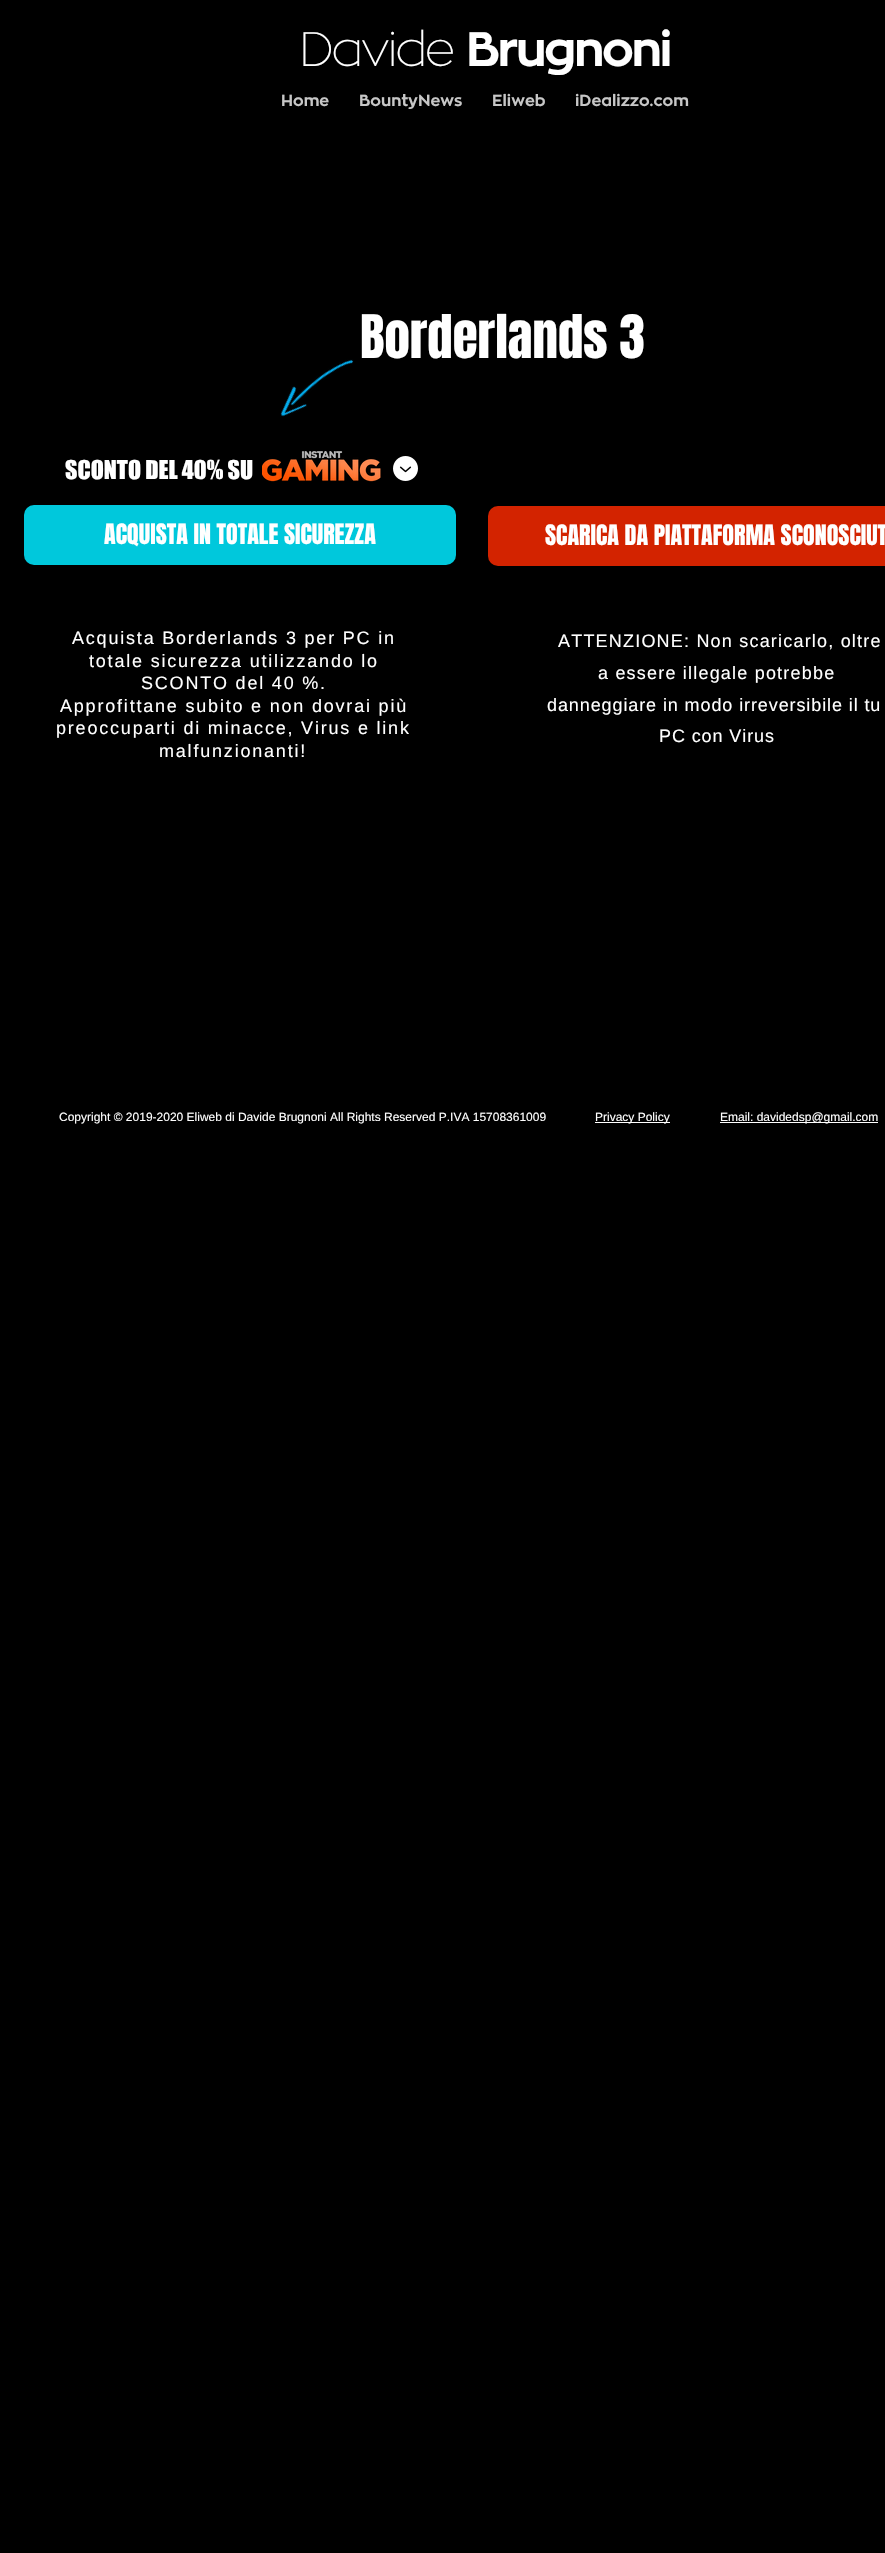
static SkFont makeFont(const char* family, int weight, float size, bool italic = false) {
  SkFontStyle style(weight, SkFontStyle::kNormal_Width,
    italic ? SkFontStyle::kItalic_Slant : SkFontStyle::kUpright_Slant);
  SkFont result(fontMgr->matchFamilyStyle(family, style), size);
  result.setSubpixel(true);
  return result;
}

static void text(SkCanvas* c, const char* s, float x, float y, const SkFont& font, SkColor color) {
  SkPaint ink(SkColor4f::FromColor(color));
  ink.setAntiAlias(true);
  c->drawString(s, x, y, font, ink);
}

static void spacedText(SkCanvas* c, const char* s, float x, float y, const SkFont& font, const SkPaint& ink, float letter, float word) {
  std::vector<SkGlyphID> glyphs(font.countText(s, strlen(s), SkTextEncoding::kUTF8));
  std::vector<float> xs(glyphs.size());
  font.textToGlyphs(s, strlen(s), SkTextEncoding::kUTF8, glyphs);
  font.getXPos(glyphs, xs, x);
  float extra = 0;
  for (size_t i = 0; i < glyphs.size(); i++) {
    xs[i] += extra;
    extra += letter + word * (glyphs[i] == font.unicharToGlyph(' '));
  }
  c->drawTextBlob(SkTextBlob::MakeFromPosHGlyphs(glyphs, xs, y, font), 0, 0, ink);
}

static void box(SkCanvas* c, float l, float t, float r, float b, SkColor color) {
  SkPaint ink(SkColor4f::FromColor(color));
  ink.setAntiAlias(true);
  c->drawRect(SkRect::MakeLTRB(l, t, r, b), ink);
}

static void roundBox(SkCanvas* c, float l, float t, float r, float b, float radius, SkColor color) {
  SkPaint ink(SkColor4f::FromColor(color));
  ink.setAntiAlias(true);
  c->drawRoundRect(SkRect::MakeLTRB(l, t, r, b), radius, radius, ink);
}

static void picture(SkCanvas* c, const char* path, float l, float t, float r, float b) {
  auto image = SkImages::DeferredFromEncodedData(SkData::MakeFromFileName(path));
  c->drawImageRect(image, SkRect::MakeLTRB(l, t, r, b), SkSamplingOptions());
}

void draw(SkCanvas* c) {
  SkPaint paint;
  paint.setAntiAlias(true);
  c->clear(0xff000000);
  SkFont face1 = makeFont("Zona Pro", 100, 48);
  paint.setColor(0xffffffff);
  spacedText(c, "Davide", 299, 66, face1, paint, -2.5f, 0);
  SkFont face2 = makeFont("Zona Pro", 700, 48);
  spacedText(c, "Brugnoni", 466, 66, face2, paint, -2.5f, 0);
  SkFont face3 = makeFont("Zona Pro", 700, 16);
  text(c, "Home", 281, 106, face3, 0xffc7c7c7);
  text(c, "BountyNews", 359, 106, face3, 0xffc7c7c7);
  text(c, "Eliweb", 492, 106, face3, 0xffc7c7c7);
  text(c, "iDealizzo.com", 575, 106, face3, 0xffc7c7c7);
  SkFont face4 = makeFont("Anton", 400, 51);
  text(c, "Borderlands 3", 360, 358, face4, 0xffffffff);
  picture(c, "img_01.png", 280, 359, 354, 417);
  SkFont face5 = makeFont("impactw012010", 400, 24);
  text(c, "SCONTO DEL 40% SU", 65, 479, face5, 0xffffffff);
  picture(c, "img_02.png", 262, 451, 381, 482);
  picture(c, "img_03.png", 393, 456, 418, 481);
  roundBox(c, 24, 505, 456, 565, 10, 0xff00c8dc);
  SkFont face6 = makeFont("Anton", 400, 24);
  text(c, "ACQUISTA IN TOTALE SICUREZZA", 104, 544, face6, 0xffffffff);
  roundBox(c, 488, 506, 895, 566, 10, 0xffd32300);
  text(c, "SCARICA DA PIATTAFORMA SCONOSCIUT", 545, 545, face6, 0xffffffff);
  SkFont face7 = makeFont("Liberation Sans", 400, 18);
  spacedText(c, "Acquista Borderlands 3 per PC in", 72, 644, face7, paint, 1.8f, 0);
  spacedText(c, "totale sicurezza utilizzando lo", 89, 667, face7, paint, 1.8f, 0);
  spacedText(c, "SCONTO del 40 %.", 141, 689, face7, paint, 1.8f, 0);
  spacedText(c, "Approfittane subito e non dovrai più", 60, 712, face7, paint, 1.8f, 0);
  spacedText(c, "preoccuparti di minacce, Virus e link", 56, 734, face7, paint, 1.8f, 0);
  spacedText(c, "malfunzionanti!", 159, 757, face7, paint, 1.8f, 0);
  spacedText(c, "ATTENZIONE: Non scaricarlo, oltre", 558, 647, face7, paint, 1.2f, 0);
  spacedText(c, "a essere illegale potrebbe", 598, 679, face7, paint, 1.2f, 0);
  spacedText(c, "danneggiare in modo irreversibile il tu", 547, 711, face7, paint, 0.9f, 0);
  spacedText(c, "PC con Virus", 659, 742, face7, paint, 0.9f, 0);
  SkFont face8 = makeFont("Liberation Sans", 400, 12);
  text(c, "Copyright © 2019-2020 Eliweb di Davide Brugnoni All Rights Reserved P.IVA 15708361009", 59, 1121, face8, 0xffffffff);
  box(c, 595, 1122, 670, 1123, 0xffffffff);
  text(c, "Privacy Policy", 595, 1121, face8, 0xffffffff);
  box(c, 720, 1122, 878, 1123, 0xffffffff);
  text(c, "Email: davidedsp@gmail.com", 720, 1121, face8, 0xffffffff);
}
